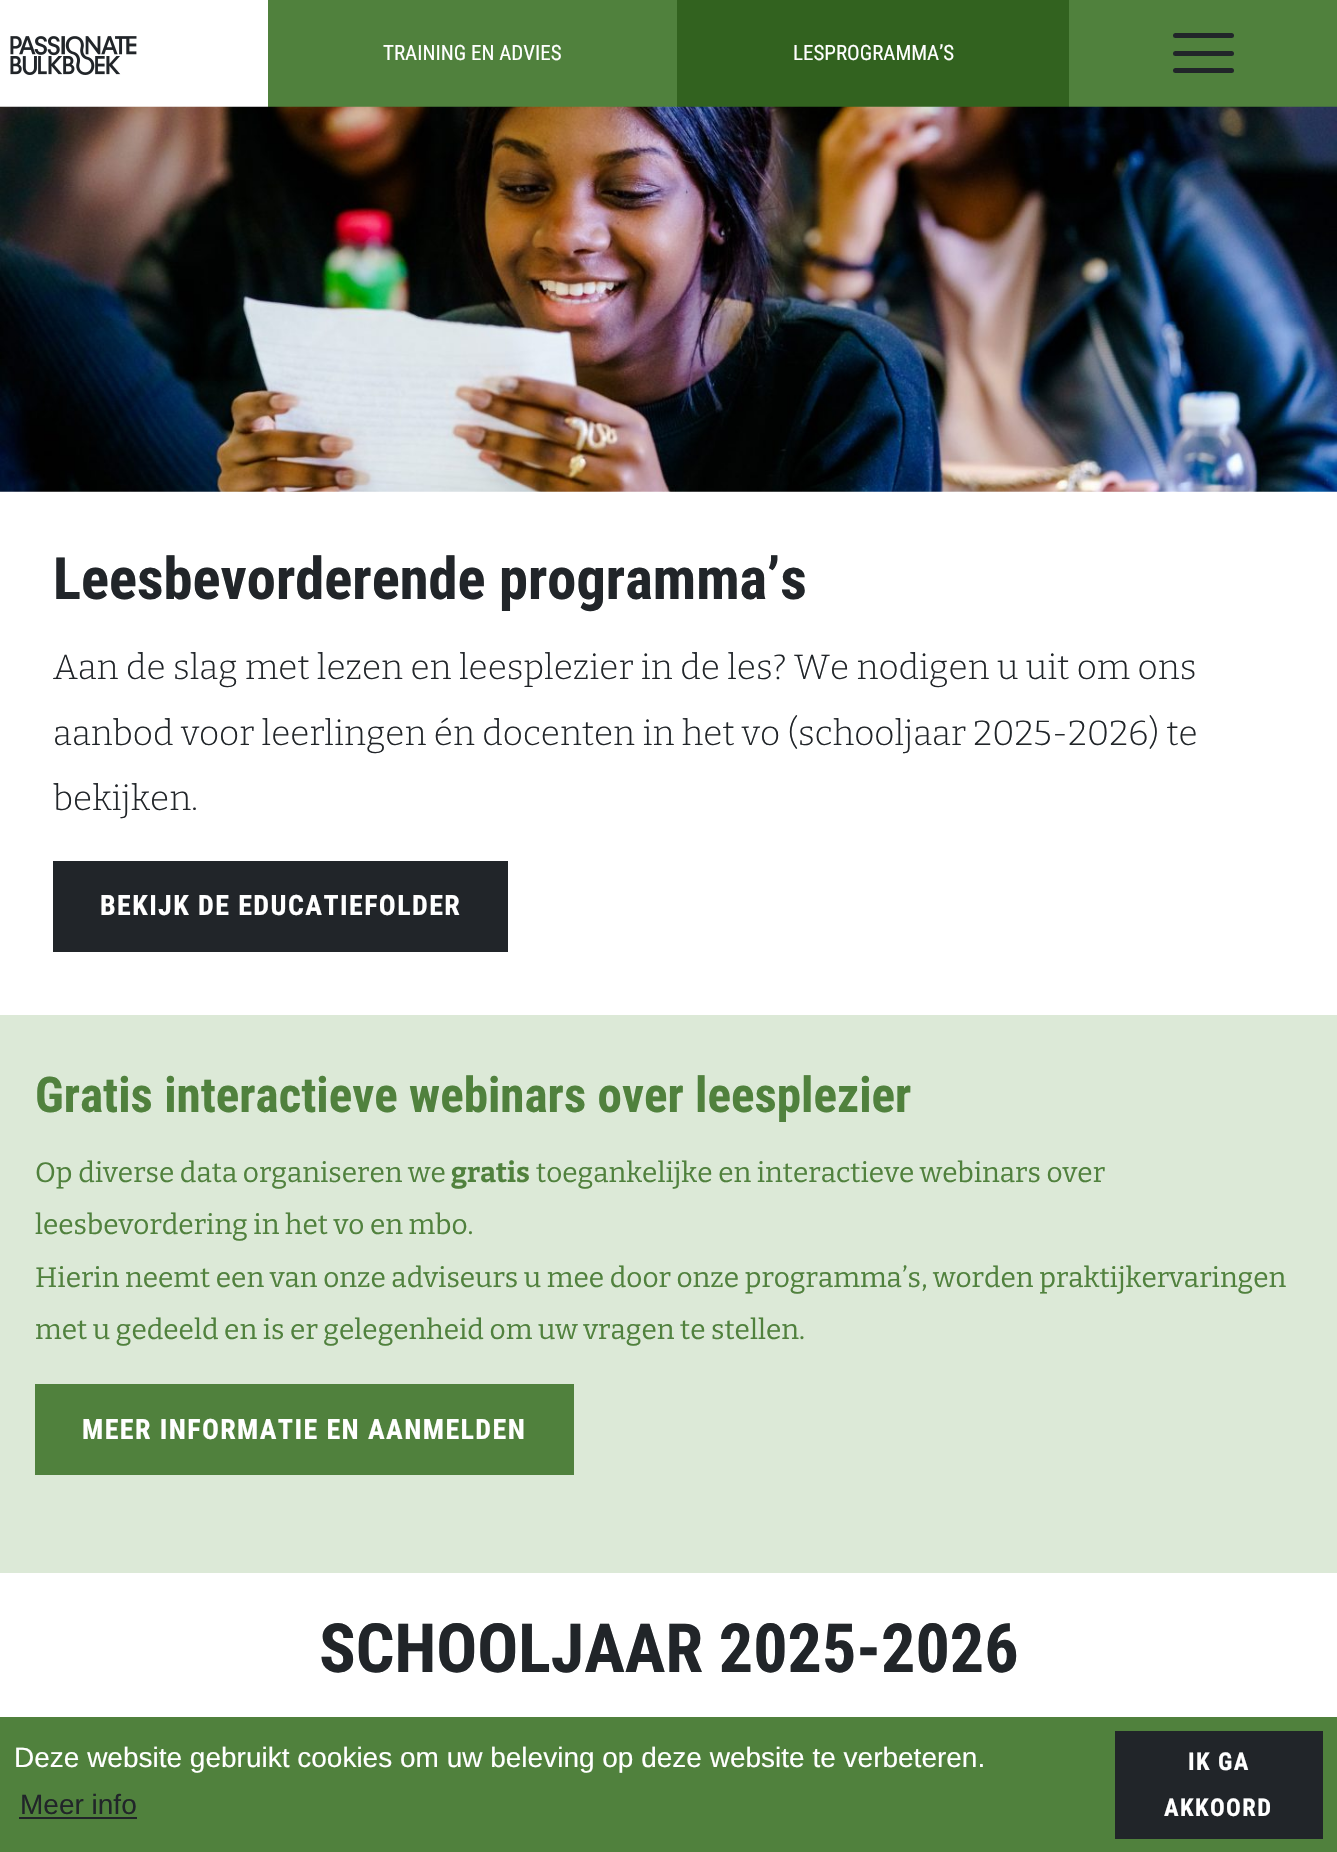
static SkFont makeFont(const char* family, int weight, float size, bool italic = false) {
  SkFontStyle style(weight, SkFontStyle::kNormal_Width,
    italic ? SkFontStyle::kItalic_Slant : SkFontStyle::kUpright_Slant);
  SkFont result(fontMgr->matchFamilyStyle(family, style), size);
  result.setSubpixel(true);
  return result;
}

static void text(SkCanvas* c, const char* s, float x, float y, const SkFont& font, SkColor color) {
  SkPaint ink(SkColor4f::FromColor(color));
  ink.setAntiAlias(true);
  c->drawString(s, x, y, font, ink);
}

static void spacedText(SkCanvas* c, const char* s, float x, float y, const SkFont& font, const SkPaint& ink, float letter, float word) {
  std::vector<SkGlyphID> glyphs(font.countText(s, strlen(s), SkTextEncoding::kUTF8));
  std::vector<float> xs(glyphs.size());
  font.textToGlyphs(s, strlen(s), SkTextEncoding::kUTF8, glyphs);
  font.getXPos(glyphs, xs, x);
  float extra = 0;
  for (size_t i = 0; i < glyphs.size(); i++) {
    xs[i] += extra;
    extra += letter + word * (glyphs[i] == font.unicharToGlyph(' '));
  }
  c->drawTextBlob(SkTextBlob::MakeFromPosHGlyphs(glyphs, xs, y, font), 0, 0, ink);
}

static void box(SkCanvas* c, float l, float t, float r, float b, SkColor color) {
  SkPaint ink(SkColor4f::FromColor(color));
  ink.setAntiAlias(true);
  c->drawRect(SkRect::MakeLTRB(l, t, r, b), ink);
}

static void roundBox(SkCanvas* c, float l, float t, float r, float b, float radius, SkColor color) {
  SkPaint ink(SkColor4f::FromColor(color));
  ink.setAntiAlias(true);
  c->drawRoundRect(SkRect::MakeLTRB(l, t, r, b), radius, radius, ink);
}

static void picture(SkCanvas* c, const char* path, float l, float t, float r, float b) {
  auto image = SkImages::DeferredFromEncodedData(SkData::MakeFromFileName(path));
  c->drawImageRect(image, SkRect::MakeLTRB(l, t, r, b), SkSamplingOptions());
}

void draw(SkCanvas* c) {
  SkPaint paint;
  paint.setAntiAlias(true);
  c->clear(0xffffffff);
  box(c, 268, 0, 1337, 107, 0xff50813d);
  picture(c, "img_01.png", 10, 36, 137, 75);
  SkFont face1 = makeFont("Roboto Condensed", 400, 21);
  text(c, "TRAINING EN ADVIES", 383, 60, face1, 0xffffffff);
  box(c, 677, 0, 1069, 107, 0xff32621f);
  text(c, "LESPROGRAMMA’S", 793, 60, face1, 0xffffffff);
  roundBox(c, 1173, 51, 1234, 56, 2.5f, 0xff212529);
  roundBox(c, 1173, 33, 1234, 38, 2.5f, 0xff212529);
  roundBox(c, 1173, 68, 1234, 73, 2.5f, 0xff212529);
  picture(c, "img_02.png", 0, 106, 1337, 492);
  SkFont face2 = makeFont("Roboto Condensed", 700, 58.5f);
  text(c, "Leesbevorderende programma’s", 53, 599, face2, 0xff212529);
  SkFont face3 = makeFont("Bitter", 300, 35);
  text(c, "Aan de slag met lezen en leesplezier in de les? We nodigen u uit om ons", 53, 679, face3, 0xff212529);
  text(c, "aanbod voor leerlingen én docenten in het vo (schooljaar 2025-2026) te", 53, 745, face3, 0xff212529);
  text(c, "bekijken.", 53, 810, face3, 0xff212529);
  box(c, 53, 861, 508, 952, 0xff212529);
  SkFont face4 = makeFont("Roboto Condensed", 700, 28);
  paint.setColor(0xffffffff);
  spacedText(c, "BEKIJK DE EDUCATIEFOLDER", 100, 915, face4, paint, 1.4f, 0);
  box(c, 0, 1015, 1337, 1573, 0xffdce9d7);
  SkFont face5 = makeFont("Roboto Condensed", 700, 49.1f);
  text(c, "Gratis interactieve webinars over leesplezier", 35, 1112, face5, 0xff50813d);
  SkFont face6 = makeFont("Bitter", 400, 28);
  text(c, "Op diverse data organiseren we", 35, 1182, face6, 0xff50813d);
  SkFont face7 = makeFont("Bitter", 700, 28);
  text(c, "gratis", 451, 1182, face7, 0xff50813d);
  text(c, "toegankelijke en interactieve webinars over", 536, 1182, face6, 0xff50813d);
  text(c, "leesbevordering in het vo en mbo.", 35, 1234, face6, 0xff50813d);
  text(c, "Hierin neemt een van onze adviseurs u mee door onze programma’s, worden praktijkervaringen", 35, 1287, face6, 0xff50813d);
  text(c, "met u gedeeld en is er gelegenheid om uw vragen te stellen.", 35, 1339, face6, 0xff50813d);
  box(c, 35, 1384, 574, 1475, 0xff50813d);
  spacedText(c, "MEER INFORMATIE EN AANMELDEN", 82, 1439, face4, paint, 1.4f, 0);
  SkFont face8 = makeFont("Roboto Condensed", 700, 68);
  text(c, "SCHOOLJAAR 2025-2026", 319, 1672, face8, 0xff212529);
  box(c, 0, 1717, 1337, 1852, 0xff50813d);
  SkFont face9 = makeFont("Liberation Sans", 400, 28);
  text(c, "Deze website gebruikt cookies om uw beleving op deze website te verbeteren.", 14, 1767, face9, 0xffffffff);
  text(c, "Meer info", 20, 1814, face9, 0xff212529);
  box(c, 19, 1817, 137, 1819, 0xff212529);
  box(c, 1115, 1731, 1323, 1839, 0xff212529);
  SkFont face10 = makeFont("Roboto Condensed", 700, 24.5f);
  spacedText(c, "IK GA", 1188, 1770, face10, paint, 1.4f, 0);
  spacedText(c, "AKKOORD", 1164, 1816, face10, paint, 1.4f, 0);
}
